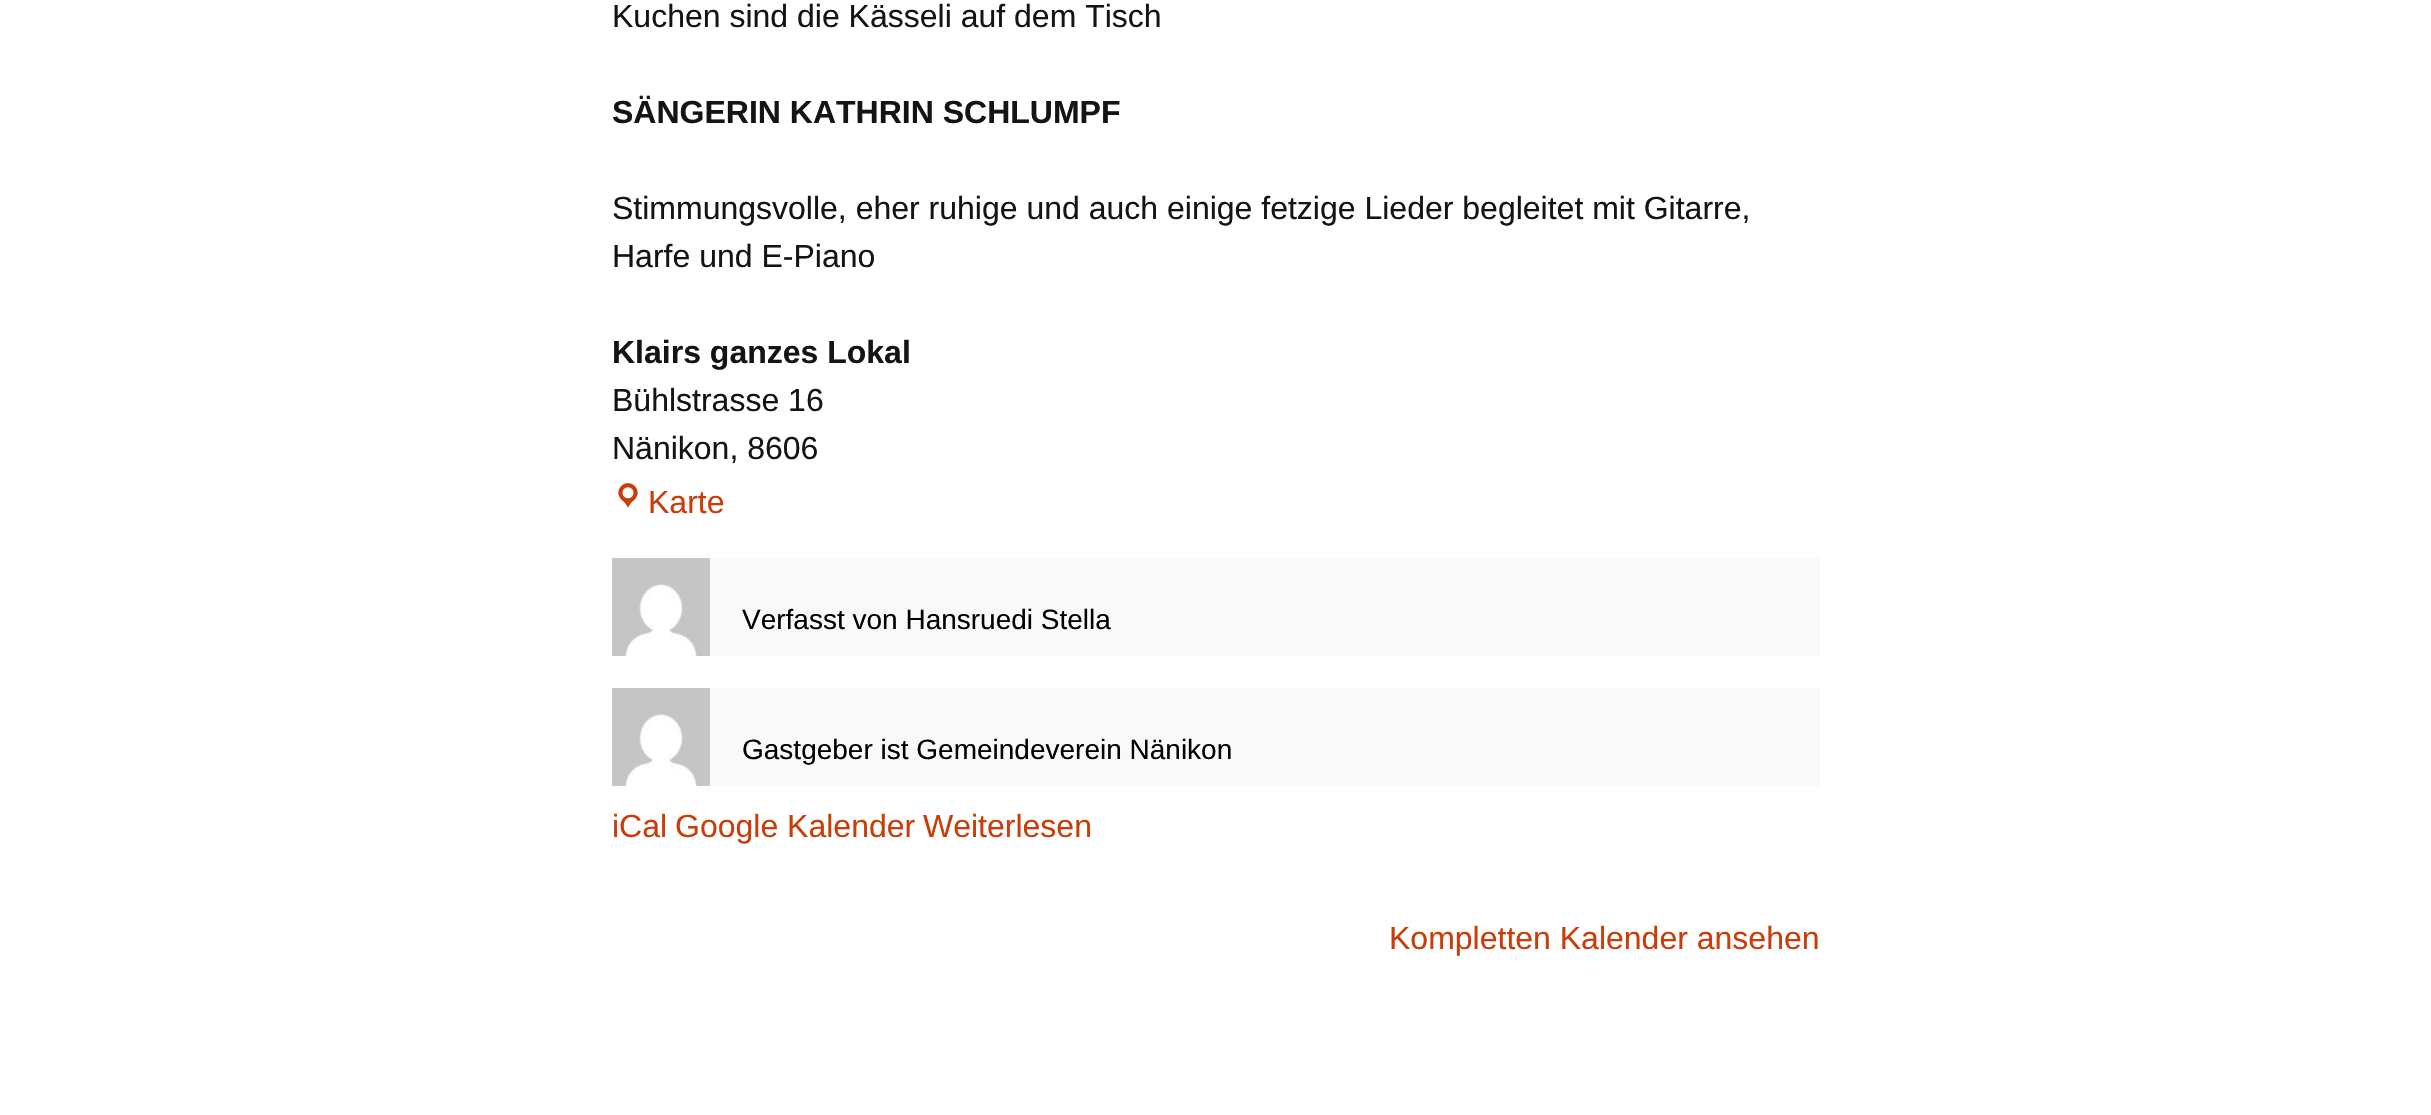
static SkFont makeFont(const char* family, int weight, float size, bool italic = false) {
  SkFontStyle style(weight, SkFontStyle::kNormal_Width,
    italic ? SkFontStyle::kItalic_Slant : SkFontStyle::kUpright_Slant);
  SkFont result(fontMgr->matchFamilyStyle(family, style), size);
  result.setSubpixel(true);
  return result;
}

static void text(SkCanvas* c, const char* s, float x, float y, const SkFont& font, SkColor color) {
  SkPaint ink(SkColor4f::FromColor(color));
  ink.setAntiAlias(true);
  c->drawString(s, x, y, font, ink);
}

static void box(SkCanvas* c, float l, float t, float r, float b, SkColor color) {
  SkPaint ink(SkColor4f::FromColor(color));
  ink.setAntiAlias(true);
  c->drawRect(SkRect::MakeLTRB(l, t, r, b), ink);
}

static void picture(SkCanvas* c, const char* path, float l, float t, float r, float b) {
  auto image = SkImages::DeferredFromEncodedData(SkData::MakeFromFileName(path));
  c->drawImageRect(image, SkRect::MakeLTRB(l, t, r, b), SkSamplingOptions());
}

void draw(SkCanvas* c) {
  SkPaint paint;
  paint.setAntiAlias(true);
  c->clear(0xffffffff);
  SkFont face1 = makeFont("Liberation Sans", 400, 32);
  text(c, "Kuchen sind die Kässeli auf dem Tisch", 612, 27, face1, 0xff141412);
  SkFont face2 = makeFont("Liberation Sans", 700, 32);
  text(c, "SÄNGERIN KATHRIN SCHLUMPF", 612, 123, face2, 0xff141412);
  text(c, "Stimmungsvolle, eher ruhige und auch einige fetzige Lieder begleitet mit Gitarre,", 612, 219, face1, 0xff141412);
  text(c, "Harfe und E-Piano", 612, 267, face1, 0xff141412);
  text(c, "Klairs ganzes Lokal", 612, 363, face2, 0xff141412);
  text(c, "Bühlstrasse 16", 612, 411, face1, 0xff141412);
  text(c, "Nänikon, 8606", 612, 459, face1, 0xff141412);
  picture(c, "img_01.png", 618, 483, 638, 508);
  text(c, "Karte", 648, 513, face1, 0xffca3c08);
  box(c, 710, 558, 1820, 656, 0xfff9f9f9);
  picture(c, "img_02.png", 612, 558, 710, 656);
  SkFont face3 = makeFont("Liberation Sans", 400, 28);
  text(c, "Verfasst von Hansruedi Stella", 742, 629, face3, 0xff000000);
  box(c, 710, 688, 1820, 786, 0xfff9f9f9);
  picture(c, "img_03.png", 612, 688, 710, 786);
  text(c, "Gastgeber ist Gemeindeverein Nänikon", 742, 759, face3, 0xff000000);
  text(c, "iCal", 612, 837, face1, 0xffca3c08);
  text(c, "Google Kalender", 675, 837, face1, 0xffca3c08);
  text(c, "Weiterlesen", 923, 837, face1, 0xffca3c08);
  text(c, "Kompletten Kalender ansehen", 1389, 949, face1, 0xffca3c08);
}
